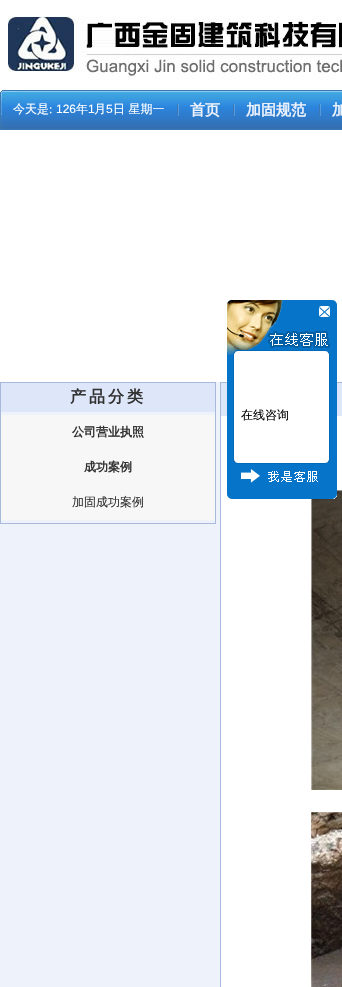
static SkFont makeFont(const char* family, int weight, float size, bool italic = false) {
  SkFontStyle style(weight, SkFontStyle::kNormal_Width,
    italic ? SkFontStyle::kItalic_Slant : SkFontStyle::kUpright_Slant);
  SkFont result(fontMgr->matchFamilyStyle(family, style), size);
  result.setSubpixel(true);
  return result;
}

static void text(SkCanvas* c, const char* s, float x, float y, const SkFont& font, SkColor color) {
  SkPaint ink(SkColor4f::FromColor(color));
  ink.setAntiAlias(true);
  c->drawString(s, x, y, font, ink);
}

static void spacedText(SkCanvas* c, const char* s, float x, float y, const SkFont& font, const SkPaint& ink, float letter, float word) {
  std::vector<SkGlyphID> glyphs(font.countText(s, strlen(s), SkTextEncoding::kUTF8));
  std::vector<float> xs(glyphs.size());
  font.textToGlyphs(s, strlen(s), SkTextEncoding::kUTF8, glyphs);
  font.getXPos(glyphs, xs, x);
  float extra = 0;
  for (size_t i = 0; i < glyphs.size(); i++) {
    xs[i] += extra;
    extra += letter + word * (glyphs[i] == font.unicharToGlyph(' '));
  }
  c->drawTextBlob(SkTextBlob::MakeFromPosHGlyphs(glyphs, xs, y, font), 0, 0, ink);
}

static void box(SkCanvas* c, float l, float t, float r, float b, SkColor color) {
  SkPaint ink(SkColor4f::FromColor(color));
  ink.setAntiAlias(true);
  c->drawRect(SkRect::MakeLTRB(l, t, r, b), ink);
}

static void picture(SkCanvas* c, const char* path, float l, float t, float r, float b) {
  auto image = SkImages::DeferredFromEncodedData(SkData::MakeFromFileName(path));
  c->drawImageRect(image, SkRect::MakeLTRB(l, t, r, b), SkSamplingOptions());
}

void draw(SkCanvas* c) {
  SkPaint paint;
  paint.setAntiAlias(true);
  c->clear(0xffffffff);
  picture(c, "img_01.png", 8, 16, 342, 80);
  picture(c, "img_02.png", 0, 90, 342, 130);
  picture(c, "img_03.png", 0, 103, 2, 115);
  SkFont face1 = makeFont("WenQuanYi Zen Hei", 500, 12);
  text(c, "今天是", 13, 113, face1, 0xffffffff);
  SkFont face2 = makeFont("Liberation Serif", 400, 12);
  text(c, ":", 49, 113, face2, 0xffffffff);
  SkFont face3 = makeFont("Liberation Sans", 400, 12);
  text(c, "126", 56, 113, face3, 0xffffffff);
  text(c, "年", 76, 113, face1, 0xffffffff);
  text(c, "1", 88, 113, face3, 0xffffffff);
  text(c, "月", 94, 113, face1, 0xffffffff);
  text(c, "5", 106, 113, face3, 0xffffffff);
  text(c, "日 星期一", 113, 113, face1, 0xffffffff);
  picture(c, "img_03.png", 177, 104, 179, 116);
  SkFont face4 = makeFont("WenQuanYi Zen Hei", 700, 15);
  text(c, "首页", 190, 115, face4, 0xffecf2fb);
  picture(c, "img_03.png", 233, 104, 235, 116);
  text(c, "加固规范", 246, 115, face4, 0xffecf2fb);
  picture(c, "img_03.png", 319, 104, 321, 116);
  text(c, "加", 332, 115, face4, 0xffecf2fb);
  box(c, 0, 382, 220, 987, 0xffeef2fa);
  paint.setStyle(SkPaint::kStroke_Style);
  paint.setStrokeWidth(1);
  paint.setColor(0xffa9b9da);
  c->drawRect(SkRect::MakeLTRB(0.5f, 382.5f, 215.5f, 523.5f), paint);
  box(c, 1, 383, 215, 412, 0xffdee7f9);
  SkFont face5 = makeFont("WenQuanYi Zen Hei", 700, 16);
  paint.setStyle(SkPaint::kFill_Style);
  paint.setColor(0xff333333);
  spacedText(c, "产品分类", 70, 402, face5, paint, 3, 0);
  box(c, 1, 415, 215, 520, 0xfff7f7f7);
  SkFont face6 = makeFont("WenQuanYi Zen Hei", 700, 12);
  text(c, "公司营业执照", 72, 436, face6, 0xff333333);
  text(c, "成功案例", 84, 471, face6, 0xff333333);
  text(c, "加固成功案例", 72, 506, face1, 0xff333333);
  paint.setStyle(SkPaint::kStroke_Style);
  paint.setColor(0xffa9b9da);
  c->drawRect(SkRect::MakeLTRB(220.5f, 382.5f, 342.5f, 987.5f), paint);
  box(c, 221, 383, 342, 416, 0xffdee7f9);
  picture(c, "img_04.png", 311, 490, 342, 790);
  picture(c, "img_05.png", 311, 812, 342, 987);
  picture(c, "img_06.png", 227, 300, 337, 357);
  picture(c, "img_07.png", 227, 357, 337, 457);
  text(c, "在线咨询", 241, 419, face1, 0xff000000);
  picture(c, "img_08.png", 227, 457, 337, 499);
}
